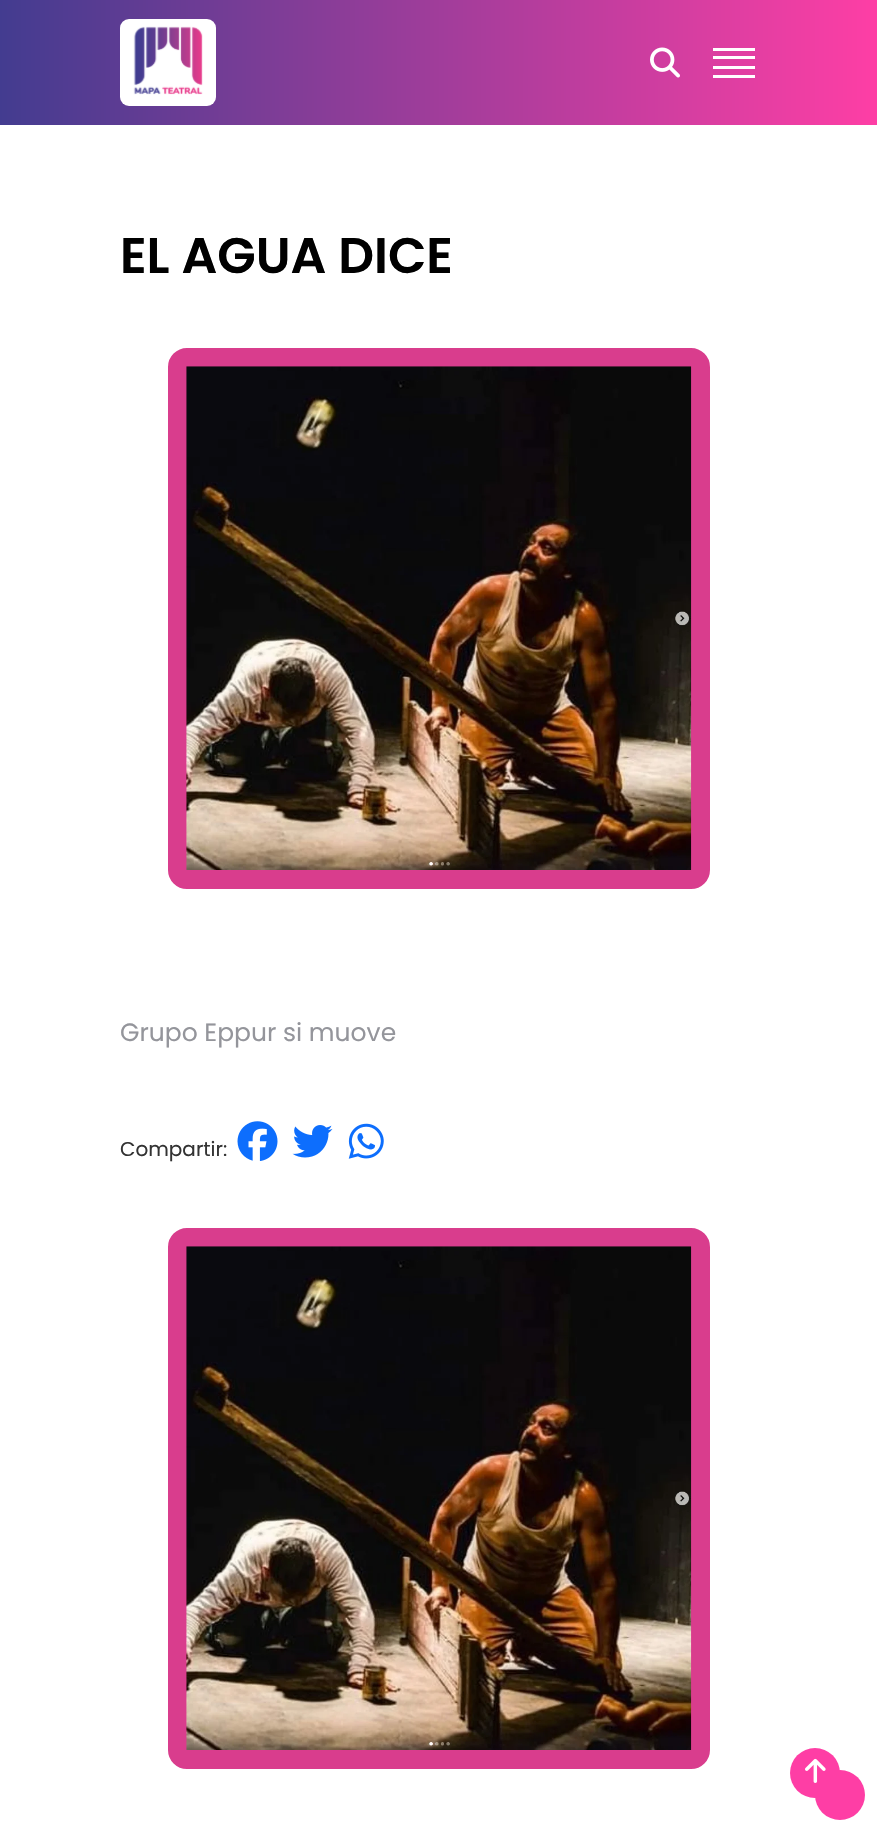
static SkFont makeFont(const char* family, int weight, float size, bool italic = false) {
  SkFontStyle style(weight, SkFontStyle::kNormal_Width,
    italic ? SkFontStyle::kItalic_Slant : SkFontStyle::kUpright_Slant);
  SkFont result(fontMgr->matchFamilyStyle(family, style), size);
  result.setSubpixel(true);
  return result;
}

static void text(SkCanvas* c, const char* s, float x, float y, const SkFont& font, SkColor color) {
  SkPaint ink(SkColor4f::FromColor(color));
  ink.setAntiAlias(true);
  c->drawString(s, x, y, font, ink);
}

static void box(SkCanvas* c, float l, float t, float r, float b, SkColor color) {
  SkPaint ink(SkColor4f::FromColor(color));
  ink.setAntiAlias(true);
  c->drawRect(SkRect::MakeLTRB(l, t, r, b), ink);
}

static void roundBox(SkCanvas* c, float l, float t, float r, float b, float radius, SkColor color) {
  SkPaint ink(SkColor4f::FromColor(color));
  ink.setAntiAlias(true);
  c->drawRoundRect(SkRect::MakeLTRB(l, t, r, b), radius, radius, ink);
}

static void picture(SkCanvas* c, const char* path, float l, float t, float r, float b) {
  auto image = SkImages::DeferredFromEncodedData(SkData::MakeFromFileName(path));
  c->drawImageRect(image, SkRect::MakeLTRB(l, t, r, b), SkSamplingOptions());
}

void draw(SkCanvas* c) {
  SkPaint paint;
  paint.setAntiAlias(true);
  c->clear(0xffffffff);
  {
    const SkColor colors[] = {0xfffe3ea5, 0xff433c90};
    const float stops[] = {0, 1};
    const SkPoint ends[] = {{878, 63}, {0, 62}};
    paint.setShader(SkGradientShader::MakeLinear(ends, colors, stops, 2, SkTileMode::kClamp));
    paint.setAlpha(255);
  }
  c->drawRect(SkRect::MakeLTRB(0, 0, 877, 125), paint);
  roundBox(c, 120, 19, 216, 106, 9, 0xffffffff);
  picture(c, "img_01.png", 133, 26, 203, 95);
  picture(c, "img_02.png", 650, 47, 680, 78);
  box(c, 713, 48, 755, 51, 0xffffffff);
  box(c, 713, 56, 755, 59, 0xffffffff);
  box(c, 713, 66, 755, 69, 0xffffffff);
  box(c, 713, 75, 755, 78, 0xffffffff);
  SkFont face1 = makeFont("Poppins", 600, 50);
  text(c, "EL AGUA DICE", 120, 273, face1, 0xff000000);
  paint.setStyle(SkPaint::kStroke_Style);
  paint.setStrokeWidth(19);
  paint.setShader(nullptr);
  paint.setColor(0xffd93d8d);
  c->drawRoundRect(SkRect::MakeLTRB(177.5f, 357.5f, 700.5f, 879.5f), 9.5f, 9.5f, paint);
  picture(c, "img_03.png", 186, 366, 692, 870);
  SkFont face2 = makeFont("Poppins", 400, 25);
  text(c, "Grupo Eppur si muove", 120, 1041, face2, 0xff94959b);
  SkFont face3 = makeFont("Poppins", 400, 20);
  text(c, "Compartir:", 120, 1156, face3, 0xff333333);
  picture(c, "img_04.png", 237, 1121, 278, 1161);
  picture(c, "img_05.png", 292, 1125, 333, 1158);
  picture(c, "img_06.png", 348, 1123, 384, 1159);
  c->drawRoundRect(SkRect::MakeLTRB(177.5f, 1237.5f, 700.5f, 1759.5f), 9.5f, 9.5f, paint);
  picture(c, "img_03.png", 186, 1246, 692, 1750);
  paint.setStyle(SkPaint::kFill_Style);
  paint.setColor(0xfffe3ea5);
  c->drawCircle(815, 1773, 25, paint);
  c->drawCircle(840, 1795, 25, paint);
  picture(c, "img_07.png", 805, 1758, 826, 1783);
}
